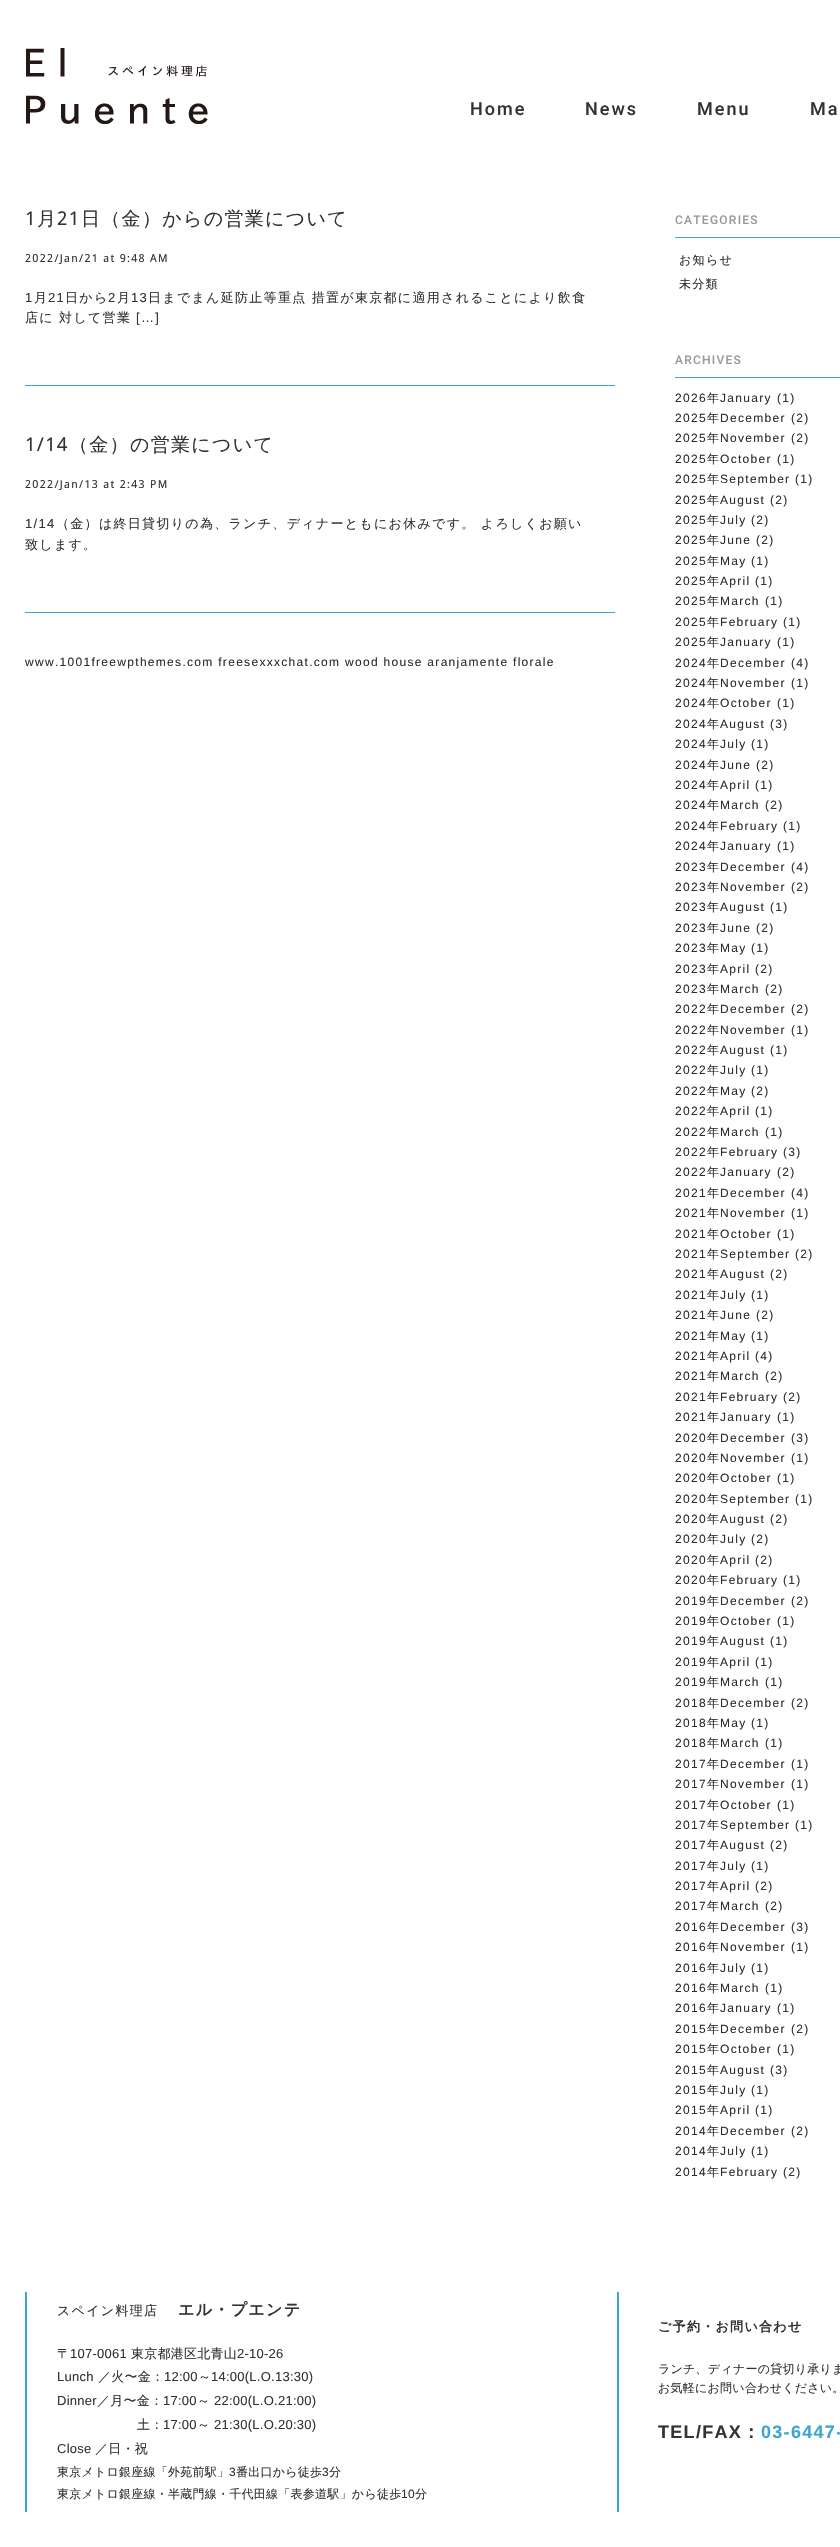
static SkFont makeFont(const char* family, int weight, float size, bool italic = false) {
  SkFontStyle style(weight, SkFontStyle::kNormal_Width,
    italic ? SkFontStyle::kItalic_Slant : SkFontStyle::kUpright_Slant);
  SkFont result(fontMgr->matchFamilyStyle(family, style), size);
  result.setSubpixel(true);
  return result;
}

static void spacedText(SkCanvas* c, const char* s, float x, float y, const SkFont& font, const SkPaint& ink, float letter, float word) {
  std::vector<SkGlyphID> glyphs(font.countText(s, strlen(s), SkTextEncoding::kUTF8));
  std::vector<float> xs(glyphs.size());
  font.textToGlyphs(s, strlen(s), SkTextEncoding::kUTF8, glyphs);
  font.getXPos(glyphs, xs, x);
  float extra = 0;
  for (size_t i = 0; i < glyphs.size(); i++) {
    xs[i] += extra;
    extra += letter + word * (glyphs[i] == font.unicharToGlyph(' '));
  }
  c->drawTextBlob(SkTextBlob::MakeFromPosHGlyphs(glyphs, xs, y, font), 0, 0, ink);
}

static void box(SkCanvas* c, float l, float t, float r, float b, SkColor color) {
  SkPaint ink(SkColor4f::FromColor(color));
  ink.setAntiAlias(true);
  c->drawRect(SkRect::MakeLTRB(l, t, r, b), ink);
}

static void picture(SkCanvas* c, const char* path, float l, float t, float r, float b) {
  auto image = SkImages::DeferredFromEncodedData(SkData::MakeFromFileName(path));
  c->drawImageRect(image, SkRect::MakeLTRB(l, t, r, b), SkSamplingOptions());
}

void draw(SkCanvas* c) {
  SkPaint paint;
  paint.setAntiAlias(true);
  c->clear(0xffffffff);
  picture(c, "img_01.png", 26, 48, 208, 124);
  SkFont face1 = makeFont("Roboto", 500, 18);
  paint.setColor(0xff333333);
  spacedText(c, "Home", 470, 115, face1, paint, 2, 0);
  spacedText(c, "News", 585, 115, face1, paint, 2, 0);
  spacedText(c, "Menu", 697, 115, face1, paint, 2, 0);
  spacedText(c, "Ma", 810, 115, face1, paint, 2, 0);
  box(c, 25, 385, 615, 386, 0xff41a6ce);
  SkFont face2 = makeFont("Droid Sans", 400, 19);
  spacedText(c, "1", 25, 225, face2, paint, 1.3f, 0);
  SkFont face3 = makeFont("WenQuanYi Zen Hei", 500, 19);
  spacedText(c, "月", 37, 225, face3, paint, 1.3f, 0);
  spacedText(c, "21", 57, 225, face2, paint, 1.3f, 0);
  spacedText(c, "日（金）からの営業について", 81, 225, face3, paint, 1.3f, 0);
  SkFont face4 = makeFont("Droid Sans", 400, 11);
  spacedText(c, "2022/Jan/21 at 9:48 AM", 25, 262, face4, paint, 1.3f, 0);
  SkFont face5 = makeFont("Liberation Sans", 400, 13);
  spacedText(c, "1", 25, 302, face5, paint, 1.3f, 0);
  SkFont face6 = makeFont("WenQuanYi Zen Hei", 500, 13);
  spacedText(c, "月", 34, 302, face6, paint, 1.3f, 0);
  spacedText(c, "21", 48, 302, face5, paint, 1.3f, 0);
  spacedText(c, "日から", 65, 302, face6, paint, 1.3f, 0);
  spacedText(c, "2", 108, 302, face5, paint, 1.3f, 0);
  spacedText(c, "月", 117, 302, face6, paint, 1.3f, 0);
  spacedText(c, "13", 131, 302, face5, paint, 1.3f, 0);
  spacedText(c, "日までまん延防止等重点 措置が東京都に適用されることにより飲食", 148, 302, face6, paint, 1.3f, 0);
  spacedText(c, "店に 対して営業", 25, 322, face6, paint, 1.3f, 0);
  spacedText(c, "[…]", 136, 322, face5, paint, 1.3f, 0);
  box(c, 25, 612, 615, 613, 0xff41a6ce);
  spacedText(c, "1/14", 25, 451, face2, paint, 1.3f, 0);
  spacedText(c, "（金）の営業について", 69, 451, face3, paint, 1.3f, 0);
  spacedText(c, "2022/Jan/13 at 2:43 PM", 25, 488, face4, paint, 1.3f, 0);
  spacedText(c, "1/14", 25, 528, face5, paint, 1.3f, 0);
  spacedText(c, "（金）は終日貸切りの為、ランチ、ディナーともにお休みです。 よろしくお願い", 56, 528, face6, paint, 1.3f, 0);
  spacedText(c, "致します。", 25, 549, face6, paint, 1.3f, 0);
  SkFont face7 = makeFont("Liberation Sans", 400, 12);
  paint.setColor(0xff2d2d2d);
  spacedText(c, "www.1001freewpthemes.com freesexxxchat.com wood house aranjamente florale", 25, 666, face7, paint, 1.3f, 0);
  box(c, 675, 237, 840, 238, 0xff41a6ce);
  SkFont face8 = makeFont("Roboto", 500, 12);
  paint.setColor(0xff999999);
  spacedText(c, "CATEGORIES", 675, 224, face8, paint, 1.25f, 0);
  SkFont face9 = makeFont("WenQuanYi Zen Hei", 500, 12);
  paint.setColor(0xff2d2d2d);
  spacedText(c, "お知らせ", 679, 264, face9, paint, 1.3f, 0);
  spacedText(c, "未分類", 679, 288, face9, paint, 1.3f, 0);
  box(c, 675, 377, 840, 378, 0xff41a6ce);
  paint.setColor(0xff999999);
  spacedText(c, "ARCHIVES", 675, 364, face8, paint, 1.25f, 0);
  paint.setColor(0xff2d2d2d);
  spacedText(c, "2026", 675, 402, face7, paint, 1.3f, 0);
  spacedText(c, "年", 707, 402, face9, paint, 1.3f, 0);
  spacedText(c, "January", 720, 402, face7, paint, 1.3f, 0);
  paint.setColor(0xff333333);
  spacedText(c, "(1)", 777, 402, face7, paint, 1.3f, 0);
  paint.setColor(0xff2d2d2d);
  spacedText(c, "2025", 675, 422, face7, paint, 1.3f, 0);
  spacedText(c, "年", 707, 422, face9, paint, 1.3f, 0);
  spacedText(c, "December", 720, 422, face7, paint, 1.3f, 0);
  paint.setColor(0xff333333);
  spacedText(c, "(2)", 791, 422, face7, paint, 1.3f, 0);
  paint.setColor(0xff2d2d2d);
  spacedText(c, "2025", 675, 442, face7, paint, 1.3f, 0);
  spacedText(c, "年", 707, 442, face9, paint, 1.3f, 0);
  spacedText(c, "November", 720, 442, face7, paint, 1.3f, 0);
  paint.setColor(0xff333333);
  spacedText(c, "(2)", 791, 442, face7, paint, 1.3f, 0);
  paint.setColor(0xff2d2d2d);
  spacedText(c, "2025", 675, 463, face7, paint, 1.3f, 0);
  spacedText(c, "年", 707, 463, face9, paint, 1.3f, 0);
  spacedText(c, "October", 720, 463, face7, paint, 1.3f, 0);
  paint.setColor(0xff333333);
  spacedText(c, "(1)", 777, 463, face7, paint, 1.3f, 0);
  paint.setColor(0xff2d2d2d);
  spacedText(c, "2025", 675, 483, face7, paint, 1.3f, 0);
  spacedText(c, "年", 707, 483, face9, paint, 1.3f, 0);
  spacedText(c, "September", 720, 483, face7, paint, 1.3f, 0);
  paint.setColor(0xff333333);
  spacedText(c, "(1)", 795, 483, face7, paint, 1.3f, 0);
  paint.setColor(0xff2d2d2d);
  spacedText(c, "2025", 675, 504, face7, paint, 1.3f, 0);
  spacedText(c, "年", 707, 504, face9, paint, 1.3f, 0);
  spacedText(c, "August", 720, 504, face7, paint, 1.3f, 0);
  paint.setColor(0xff333333);
  spacedText(c, "(2)", 770, 504, face7, paint, 1.3f, 0);
  paint.setColor(0xff2d2d2d);
  spacedText(c, "2025", 675, 524, face7, paint, 1.3f, 0);
  spacedText(c, "年", 707, 524, face9, paint, 1.3f, 0);
  spacedText(c, "July", 720, 524, face7, paint, 1.3f, 0);
  paint.setColor(0xff333333);
  spacedText(c, "(2)", 751, 524, face7, paint, 1.3f, 0);
  paint.setColor(0xff2d2d2d);
  spacedText(c, "2025", 675, 544, face7, paint, 1.3f, 0);
  spacedText(c, "年", 707, 544, face9, paint, 1.3f, 0);
  spacedText(c, "June", 720, 544, face7, paint, 1.3f, 0);
  paint.setColor(0xff333333);
  spacedText(c, "(2)", 756, 544, face7, paint, 1.3f, 0);
  paint.setColor(0xff2d2d2d);
  spacedText(c, "2025", 675, 565, face7, paint, 1.3f, 0);
  spacedText(c, "年", 707, 565, face9, paint, 1.3f, 0);
  spacedText(c, "May", 720, 565, face7, paint, 1.3f, 0);
  paint.setColor(0xff333333);
  spacedText(c, "(1)", 751, 565, face7, paint, 1.3f, 0);
  paint.setColor(0xff2d2d2d);
  spacedText(c, "2025", 675, 585, face7, paint, 1.3f, 0);
  spacedText(c, "年", 707, 585, face9, paint, 1.3f, 0);
  spacedText(c, "April", 720, 585, face7, paint, 1.3f, 0);
  paint.setColor(0xff333333);
  spacedText(c, "(1)", 755, 585, face7, paint, 1.3f, 0);
  paint.setColor(0xff2d2d2d);
  spacedText(c, "2025", 675, 605, face7, paint, 1.3f, 0);
  spacedText(c, "年", 707, 605, face9, paint, 1.3f, 0);
  spacedText(c, "March", 720, 605, face7, paint, 1.3f, 0);
  paint.setColor(0xff333333);
  spacedText(c, "(1)", 765, 605, face7, paint, 1.3f, 0);
  paint.setColor(0xff2d2d2d);
  spacedText(c, "2025", 675, 626, face7, paint, 1.3f, 0);
  spacedText(c, "年", 707, 626, face9, paint, 1.3f, 0);
  spacedText(c, "February", 720, 626, face7, paint, 1.3f, 0);
  paint.setColor(0xff333333);
  spacedText(c, "(1)", 783, 626, face7, paint, 1.3f, 0);
  paint.setColor(0xff2d2d2d);
  spacedText(c, "2025", 675, 646, face7, paint, 1.3f, 0);
  spacedText(c, "年", 707, 646, face9, paint, 1.3f, 0);
  spacedText(c, "January", 720, 646, face7, paint, 1.3f, 0);
  paint.setColor(0xff333333);
  spacedText(c, "(1)", 777, 646, face7, paint, 1.3f, 0);
  paint.setColor(0xff2d2d2d);
  spacedText(c, "2024", 675, 667, face7, paint, 1.3f, 0);
  spacedText(c, "年", 707, 667, face9, paint, 1.3f, 0);
  spacedText(c, "December", 720, 667, face7, paint, 1.3f, 0);
  paint.setColor(0xff333333);
  spacedText(c, "(4)", 791, 667, face7, paint, 1.3f, 0);
  paint.setColor(0xff2d2d2d);
  spacedText(c, "2024", 675, 687, face7, paint, 1.3f, 0);
  spacedText(c, "年", 707, 687, face9, paint, 1.3f, 0);
  spacedText(c, "November", 720, 687, face7, paint, 1.3f, 0);
  paint.setColor(0xff333333);
  spacedText(c, "(1)", 791, 687, face7, paint, 1.3f, 0);
  paint.setColor(0xff2d2d2d);
  spacedText(c, "2024", 675, 707, face7, paint, 1.3f, 0);
  spacedText(c, "年", 707, 707, face9, paint, 1.3f, 0);
  spacedText(c, "October", 720, 707, face7, paint, 1.3f, 0);
  paint.setColor(0xff333333);
  spacedText(c, "(1)", 777, 707, face7, paint, 1.3f, 0);
  paint.setColor(0xff2d2d2d);
  spacedText(c, "2024", 675, 728, face7, paint, 1.3f, 0);
  spacedText(c, "年", 707, 728, face9, paint, 1.3f, 0);
  spacedText(c, "August", 720, 728, face7, paint, 1.3f, 0);
  paint.setColor(0xff333333);
  spacedText(c, "(3)", 770, 728, face7, paint, 1.3f, 0);
  paint.setColor(0xff2d2d2d);
  spacedText(c, "2024", 675, 748, face7, paint, 1.3f, 0);
  spacedText(c, "年", 707, 748, face9, paint, 1.3f, 0);
  spacedText(c, "July", 720, 748, face7, paint, 1.3f, 0);
  paint.setColor(0xff333333);
  spacedText(c, "(1)", 751, 748, face7, paint, 1.3f, 0);
  paint.setColor(0xff2d2d2d);
  spacedText(c, "2024", 675, 769, face7, paint, 1.3f, 0);
  spacedText(c, "年", 707, 769, face9, paint, 1.3f, 0);
  spacedText(c, "June", 720, 769, face7, paint, 1.3f, 0);
  paint.setColor(0xff333333);
  spacedText(c, "(2)", 756, 769, face7, paint, 1.3f, 0);
  paint.setColor(0xff2d2d2d);
  spacedText(c, "2024", 675, 789, face7, paint, 1.3f, 0);
  spacedText(c, "年", 707, 789, face9, paint, 1.3f, 0);
  spacedText(c, "April", 720, 789, face7, paint, 1.3f, 0);
  paint.setColor(0xff333333);
  spacedText(c, "(1)", 755, 789, face7, paint, 1.3f, 0);
  paint.setColor(0xff2d2d2d);
  spacedText(c, "2024", 675, 809, face7, paint, 1.3f, 0);
  spacedText(c, "年", 707, 809, face9, paint, 1.3f, 0);
  spacedText(c, "March", 720, 809, face7, paint, 1.3f, 0);
  paint.setColor(0xff333333);
  spacedText(c, "(2)", 765, 809, face7, paint, 1.3f, 0);
  paint.setColor(0xff2d2d2d);
  spacedText(c, "2024", 675, 830, face7, paint, 1.3f, 0);
  spacedText(c, "年", 707, 830, face9, paint, 1.3f, 0);
  spacedText(c, "February", 720, 830, face7, paint, 1.3f, 0);
  paint.setColor(0xff333333);
  spacedText(c, "(1)", 783, 830, face7, paint, 1.3f, 0);
  paint.setColor(0xff2d2d2d);
  spacedText(c, "2024", 675, 850, face7, paint, 1.3f, 0);
  spacedText(c, "年", 707, 850, face9, paint, 1.3f, 0);
  spacedText(c, "January", 720, 850, face7, paint, 1.3f, 0);
  paint.setColor(0xff333333);
  spacedText(c, "(1)", 777, 850, face7, paint, 1.3f, 0);
  paint.setColor(0xff2d2d2d);
  spacedText(c, "2023", 675, 871, face7, paint, 1.3f, 0);
  spacedText(c, "年", 707, 871, face9, paint, 1.3f, 0);
  spacedText(c, "December", 720, 871, face7, paint, 1.3f, 0);
  paint.setColor(0xff333333);
  spacedText(c, "(4)", 791, 871, face7, paint, 1.3f, 0);
  paint.setColor(0xff2d2d2d);
  spacedText(c, "2023", 675, 891, face7, paint, 1.3f, 0);
  spacedText(c, "年", 707, 891, face9, paint, 1.3f, 0);
  spacedText(c, "November", 720, 891, face7, paint, 1.3f, 0);
  paint.setColor(0xff333333);
  spacedText(c, "(2)", 791, 891, face7, paint, 1.3f, 0);
  paint.setColor(0xff2d2d2d);
  spacedText(c, "2023", 675, 911, face7, paint, 1.3f, 0);
  spacedText(c, "年", 707, 911, face9, paint, 1.3f, 0);
  spacedText(c, "August", 720, 911, face7, paint, 1.3f, 0);
  paint.setColor(0xff333333);
  spacedText(c, "(1)", 770, 911, face7, paint, 1.3f, 0);
  paint.setColor(0xff2d2d2d);
  spacedText(c, "2023", 675, 932, face7, paint, 1.3f, 0);
  spacedText(c, "年", 707, 932, face9, paint, 1.3f, 0);
  spacedText(c, "June", 720, 932, face7, paint, 1.3f, 0);
  paint.setColor(0xff333333);
  spacedText(c, "(2)", 756, 932, face7, paint, 1.3f, 0);
  paint.setColor(0xff2d2d2d);
  spacedText(c, "2023", 675, 952, face7, paint, 1.3f, 0);
  spacedText(c, "年", 707, 952, face9, paint, 1.3f, 0);
  spacedText(c, "May", 720, 952, face7, paint, 1.3f, 0);
  paint.setColor(0xff333333);
  spacedText(c, "(1)", 751, 952, face7, paint, 1.3f, 0);
  paint.setColor(0xff2d2d2d);
  spacedText(c, "2023", 675, 973, face7, paint, 1.3f, 0);
  spacedText(c, "年", 707, 973, face9, paint, 1.3f, 0);
  spacedText(c, "April", 720, 973, face7, paint, 1.3f, 0);
  paint.setColor(0xff333333);
  spacedText(c, "(2)", 755, 973, face7, paint, 1.3f, 0);
  paint.setColor(0xff2d2d2d);
  spacedText(c, "2023", 675, 993, face7, paint, 1.3f, 0);
  spacedText(c, "年", 707, 993, face9, paint, 1.3f, 0);
  spacedText(c, "March", 720, 993, face7, paint, 1.3f, 0);
  paint.setColor(0xff333333);
  spacedText(c, "(2)", 765, 993, face7, paint, 1.3f, 0);
  paint.setColor(0xff2d2d2d);
  spacedText(c, "2022", 675, 1013, face7, paint, 1.3f, 0);
  spacedText(c, "年", 707, 1013, face9, paint, 1.3f, 0);
  spacedText(c, "December", 720, 1013, face7, paint, 1.3f, 0);
  paint.setColor(0xff333333);
  spacedText(c, "(2)", 791, 1013, face7, paint, 1.3f, 0);
  paint.setColor(0xff2d2d2d);
  spacedText(c, "2022", 675, 1034, face7, paint, 1.3f, 0);
  spacedText(c, "年", 707, 1034, face9, paint, 1.3f, 0);
  spacedText(c, "November", 720, 1034, face7, paint, 1.3f, 0);
  paint.setColor(0xff333333);
  spacedText(c, "(1)", 791, 1034, face7, paint, 1.3f, 0);
  paint.setColor(0xff2d2d2d);
  spacedText(c, "2022", 675, 1054, face7, paint, 1.3f, 0);
  spacedText(c, "年", 707, 1054, face9, paint, 1.3f, 0);
  spacedText(c, "August", 720, 1054, face7, paint, 1.3f, 0);
  paint.setColor(0xff333333);
  spacedText(c, "(1)", 770, 1054, face7, paint, 1.3f, 0);
  paint.setColor(0xff2d2d2d);
  spacedText(c, "2022", 675, 1074, face7, paint, 1.3f, 0);
  spacedText(c, "年", 707, 1074, face9, paint, 1.3f, 0);
  spacedText(c, "July", 720, 1074, face7, paint, 1.3f, 0);
  paint.setColor(0xff333333);
  spacedText(c, "(1)", 751, 1074, face7, paint, 1.3f, 0);
  paint.setColor(0xff2d2d2d);
  spacedText(c, "2022", 675, 1095, face7, paint, 1.3f, 0);
  spacedText(c, "年", 707, 1095, face9, paint, 1.3f, 0);
  spacedText(c, "May", 720, 1095, face7, paint, 1.3f, 0);
  paint.setColor(0xff333333);
  spacedText(c, "(2)", 751, 1095, face7, paint, 1.3f, 0);
  paint.setColor(0xff2d2d2d);
  spacedText(c, "2022", 675, 1115, face7, paint, 1.3f, 0);
  spacedText(c, "年", 707, 1115, face9, paint, 1.3f, 0);
  spacedText(c, "April", 720, 1115, face7, paint, 1.3f, 0);
  paint.setColor(0xff333333);
  spacedText(c, "(1)", 755, 1115, face7, paint, 1.3f, 0);
  paint.setColor(0xff2d2d2d);
  spacedText(c, "2022", 675, 1136, face7, paint, 1.3f, 0);
  spacedText(c, "年", 707, 1136, face9, paint, 1.3f, 0);
  spacedText(c, "March", 720, 1136, face7, paint, 1.3f, 0);
  paint.setColor(0xff333333);
  spacedText(c, "(1)", 765, 1136, face7, paint, 1.3f, 0);
  paint.setColor(0xff2d2d2d);
  spacedText(c, "2022", 675, 1156, face7, paint, 1.3f, 0);
  spacedText(c, "年", 707, 1156, face9, paint, 1.3f, 0);
  spacedText(c, "February", 720, 1156, face7, paint, 1.3f, 0);
  paint.setColor(0xff333333);
  spacedText(c, "(3)", 783, 1156, face7, paint, 1.3f, 0);
  paint.setColor(0xff2d2d2d);
  spacedText(c, "2022", 675, 1176, face7, paint, 1.3f, 0);
  spacedText(c, "年", 707, 1176, face9, paint, 1.3f, 0);
  spacedText(c, "January", 720, 1176, face7, paint, 1.3f, 0);
  paint.setColor(0xff333333);
  spacedText(c, "(2)", 777, 1176, face7, paint, 1.3f, 0);
  paint.setColor(0xff2d2d2d);
  spacedText(c, "2021", 675, 1197, face7, paint, 1.3f, 0);
  spacedText(c, "年", 707, 1197, face9, paint, 1.3f, 0);
  spacedText(c, "December", 720, 1197, face7, paint, 1.3f, 0);
  paint.setColor(0xff333333);
  spacedText(c, "(4)", 791, 1197, face7, paint, 1.3f, 0);
  paint.setColor(0xff2d2d2d);
  spacedText(c, "2021", 675, 1217, face7, paint, 1.3f, 0);
  spacedText(c, "年", 707, 1217, face9, paint, 1.3f, 0);
  spacedText(c, "November", 720, 1217, face7, paint, 1.3f, 0);
  paint.setColor(0xff333333);
  spacedText(c, "(1)", 791, 1217, face7, paint, 1.3f, 0);
  paint.setColor(0xff2d2d2d);
  spacedText(c, "2021", 675, 1238, face7, paint, 1.3f, 0);
  spacedText(c, "年", 707, 1238, face9, paint, 1.3f, 0);
  spacedText(c, "October", 720, 1238, face7, paint, 1.3f, 0);
  paint.setColor(0xff333333);
  spacedText(c, "(1)", 777, 1238, face7, paint, 1.3f, 0);
  paint.setColor(0xff2d2d2d);
  spacedText(c, "2021", 675, 1258, face7, paint, 1.3f, 0);
  spacedText(c, "年", 707, 1258, face9, paint, 1.3f, 0);
  spacedText(c, "September", 720, 1258, face7, paint, 1.3f, 0);
  paint.setColor(0xff333333);
  spacedText(c, "(2)", 795, 1258, face7, paint, 1.3f, 0);
  paint.setColor(0xff2d2d2d);
  spacedText(c, "2021", 675, 1278, face7, paint, 1.3f, 0);
  spacedText(c, "年", 707, 1278, face9, paint, 1.3f, 0);
  spacedText(c, "August", 720, 1278, face7, paint, 1.3f, 0);
  paint.setColor(0xff333333);
  spacedText(c, "(2)", 770, 1278, face7, paint, 1.3f, 0);
  paint.setColor(0xff2d2d2d);
  spacedText(c, "2021", 675, 1299, face7, paint, 1.3f, 0);
  spacedText(c, "年", 707, 1299, face9, paint, 1.3f, 0);
  spacedText(c, "July", 720, 1299, face7, paint, 1.3f, 0);
  paint.setColor(0xff333333);
  spacedText(c, "(1)", 751, 1299, face7, paint, 1.3f, 0);
  paint.setColor(0xff2d2d2d);
  spacedText(c, "2021", 675, 1319, face7, paint, 1.3f, 0);
  spacedText(c, "年", 707, 1319, face9, paint, 1.3f, 0);
  spacedText(c, "June", 720, 1319, face7, paint, 1.3f, 0);
  paint.setColor(0xff333333);
  spacedText(c, "(2)", 756, 1319, face7, paint, 1.3f, 0);
  paint.setColor(0xff2d2d2d);
  spacedText(c, "2021", 675, 1340, face7, paint, 1.3f, 0);
  spacedText(c, "年", 707, 1340, face9, paint, 1.3f, 0);
  spacedText(c, "May", 720, 1340, face7, paint, 1.3f, 0);
  paint.setColor(0xff333333);
  spacedText(c, "(1)", 751, 1340, face7, paint, 1.3f, 0);
  paint.setColor(0xff2d2d2d);
  spacedText(c, "2021", 675, 1360, face7, paint, 1.3f, 0);
  spacedText(c, "年", 707, 1360, face9, paint, 1.3f, 0);
  spacedText(c, "April", 720, 1360, face7, paint, 1.3f, 0);
  paint.setColor(0xff333333);
  spacedText(c, "(4)", 755, 1360, face7, paint, 1.3f, 0);
  paint.setColor(0xff2d2d2d);
  spacedText(c, "2021", 675, 1380, face7, paint, 1.3f, 0);
  spacedText(c, "年", 707, 1380, face9, paint, 1.3f, 0);
  spacedText(c, "March", 720, 1380, face7, paint, 1.3f, 0);
  paint.setColor(0xff333333);
  spacedText(c, "(2)", 765, 1380, face7, paint, 1.3f, 0);
  paint.setColor(0xff2d2d2d);
  spacedText(c, "2021", 675, 1401, face7, paint, 1.3f, 0);
  spacedText(c, "年", 707, 1401, face9, paint, 1.3f, 0);
  spacedText(c, "February", 720, 1401, face7, paint, 1.3f, 0);
  paint.setColor(0xff333333);
  spacedText(c, "(2)", 783, 1401, face7, paint, 1.3f, 0);
  paint.setColor(0xff2d2d2d);
  spacedText(c, "2021", 675, 1421, face7, paint, 1.3f, 0);
  spacedText(c, "年", 707, 1421, face9, paint, 1.3f, 0);
  spacedText(c, "January", 720, 1421, face7, paint, 1.3f, 0);
  paint.setColor(0xff333333);
  spacedText(c, "(1)", 777, 1421, face7, paint, 1.3f, 0);
  paint.setColor(0xff2d2d2d);
  spacedText(c, "2020", 675, 1442, face7, paint, 1.3f, 0);
  spacedText(c, "年", 707, 1442, face9, paint, 1.3f, 0);
  spacedText(c, "December", 720, 1442, face7, paint, 1.3f, 0);
  paint.setColor(0xff333333);
  spacedText(c, "(3)", 791, 1442, face7, paint, 1.3f, 0);
  paint.setColor(0xff2d2d2d);
  spacedText(c, "2020", 675, 1462, face7, paint, 1.3f, 0);
  spacedText(c, "年", 707, 1462, face9, paint, 1.3f, 0);
  spacedText(c, "November", 720, 1462, face7, paint, 1.3f, 0);
  paint.setColor(0xff333333);
  spacedText(c, "(1)", 791, 1462, face7, paint, 1.3f, 0);
  paint.setColor(0xff2d2d2d);
  spacedText(c, "2020", 675, 1482, face7, paint, 1.3f, 0);
  spacedText(c, "年", 707, 1482, face9, paint, 1.3f, 0);
  spacedText(c, "October", 720, 1482, face7, paint, 1.3f, 0);
  paint.setColor(0xff333333);
  spacedText(c, "(1)", 777, 1482, face7, paint, 1.3f, 0);
  paint.setColor(0xff2d2d2d);
  spacedText(c, "2020", 675, 1503, face7, paint, 1.3f, 0);
  spacedText(c, "年", 707, 1503, face9, paint, 1.3f, 0);
  spacedText(c, "September", 720, 1503, face7, paint, 1.3f, 0);
  paint.setColor(0xff333333);
  spacedText(c, "(1)", 795, 1503, face7, paint, 1.3f, 0);
  paint.setColor(0xff2d2d2d);
  spacedText(c, "2020", 675, 1523, face7, paint, 1.3f, 0);
  spacedText(c, "年", 707, 1523, face9, paint, 1.3f, 0);
  spacedText(c, "August", 720, 1523, face7, paint, 1.3f, 0);
  paint.setColor(0xff333333);
  spacedText(c, "(2)", 770, 1523, face7, paint, 1.3f, 0);
  paint.setColor(0xff2d2d2d);
  spacedText(c, "2020", 675, 1543, face7, paint, 1.3f, 0);
  spacedText(c, "年", 707, 1543, face9, paint, 1.3f, 0);
  spacedText(c, "July", 720, 1543, face7, paint, 1.3f, 0);
  paint.setColor(0xff333333);
  spacedText(c, "(2)", 751, 1543, face7, paint, 1.3f, 0);
  paint.setColor(0xff2d2d2d);
  spacedText(c, "2020", 675, 1564, face7, paint, 1.3f, 0);
  spacedText(c, "年", 707, 1564, face9, paint, 1.3f, 0);
  spacedText(c, "April", 720, 1564, face7, paint, 1.3f, 0);
  paint.setColor(0xff333333);
  spacedText(c, "(2)", 755, 1564, face7, paint, 1.3f, 0);
  paint.setColor(0xff2d2d2d);
  spacedText(c, "2020", 675, 1584, face7, paint, 1.3f, 0);
  spacedText(c, "年", 707, 1584, face9, paint, 1.3f, 0);
  spacedText(c, "February", 720, 1584, face7, paint, 1.3f, 0);
  paint.setColor(0xff333333);
  spacedText(c, "(1)", 783, 1584, face7, paint, 1.3f, 0);
  paint.setColor(0xff2d2d2d);
  spacedText(c, "2019", 675, 1605, face7, paint, 1.3f, 0);
  spacedText(c, "年", 707, 1605, face9, paint, 1.3f, 0);
  spacedText(c, "December", 720, 1605, face7, paint, 1.3f, 0);
  paint.setColor(0xff333333);
  spacedText(c, "(2)", 791, 1605, face7, paint, 1.3f, 0);
  paint.setColor(0xff2d2d2d);
  spacedText(c, "2019", 675, 1625, face7, paint, 1.3f, 0);
  spacedText(c, "年", 707, 1625, face9, paint, 1.3f, 0);
  spacedText(c, "October", 720, 1625, face7, paint, 1.3f, 0);
  paint.setColor(0xff333333);
  spacedText(c, "(1)", 777, 1625, face7, paint, 1.3f, 0);
  paint.setColor(0xff2d2d2d);
  spacedText(c, "2019", 675, 1645, face7, paint, 1.3f, 0);
  spacedText(c, "年", 707, 1645, face9, paint, 1.3f, 0);
  spacedText(c, "August", 720, 1645, face7, paint, 1.3f, 0);
  paint.setColor(0xff333333);
  spacedText(c, "(1)", 770, 1645, face7, paint, 1.3f, 0);
  paint.setColor(0xff2d2d2d);
  spacedText(c, "2019", 675, 1666, face7, paint, 1.3f, 0);
  spacedText(c, "年", 707, 1666, face9, paint, 1.3f, 0);
  spacedText(c, "April", 720, 1666, face7, paint, 1.3f, 0);
  paint.setColor(0xff333333);
  spacedText(c, "(1)", 755, 1666, face7, paint, 1.3f, 0);
  paint.setColor(0xff2d2d2d);
  spacedText(c, "2019", 675, 1686, face7, paint, 1.3f, 0);
  spacedText(c, "年", 707, 1686, face9, paint, 1.3f, 0);
  spacedText(c, "March", 720, 1686, face7, paint, 1.3f, 0);
  paint.setColor(0xff333333);
  spacedText(c, "(1)", 765, 1686, face7, paint, 1.3f, 0);
  paint.setColor(0xff2d2d2d);
  spacedText(c, "2018", 675, 1707, face7, paint, 1.3f, 0);
  spacedText(c, "年", 707, 1707, face9, paint, 1.3f, 0);
  spacedText(c, "December", 720, 1707, face7, paint, 1.3f, 0);
  paint.setColor(0xff333333);
  spacedText(c, "(2)", 791, 1707, face7, paint, 1.3f, 0);
  paint.setColor(0xff2d2d2d);
  spacedText(c, "2018", 675, 1727, face7, paint, 1.3f, 0);
  spacedText(c, "年", 707, 1727, face9, paint, 1.3f, 0);
  spacedText(c, "May", 720, 1727, face7, paint, 1.3f, 0);
  paint.setColor(0xff333333);
  spacedText(c, "(1)", 751, 1727, face7, paint, 1.3f, 0);
  paint.setColor(0xff2d2d2d);
  spacedText(c, "2018", 675, 1747, face7, paint, 1.3f, 0);
  spacedText(c, "年", 707, 1747, face9, paint, 1.3f, 0);
  spacedText(c, "March", 720, 1747, face7, paint, 1.3f, 0);
  paint.setColor(0xff333333);
  spacedText(c, "(1)", 765, 1747, face7, paint, 1.3f, 0);
  paint.setColor(0xff2d2d2d);
  spacedText(c, "2017", 675, 1768, face7, paint, 1.3f, 0);
  spacedText(c, "年", 707, 1768, face9, paint, 1.3f, 0);
  spacedText(c, "December", 720, 1768, face7, paint, 1.3f, 0);
  paint.setColor(0xff333333);
  spacedText(c, "(1)", 791, 1768, face7, paint, 1.3f, 0);
  paint.setColor(0xff2d2d2d);
  spacedText(c, "2017", 675, 1788, face7, paint, 1.3f, 0);
  spacedText(c, "年", 707, 1788, face9, paint, 1.3f, 0);
  spacedText(c, "November", 720, 1788, face7, paint, 1.3f, 0);
  paint.setColor(0xff333333);
  spacedText(c, "(1)", 791, 1788, face7, paint, 1.3f, 0);
  paint.setColor(0xff2d2d2d);
  spacedText(c, "2017", 675, 1809, face7, paint, 1.3f, 0);
  spacedText(c, "年", 707, 1809, face9, paint, 1.3f, 0);
  spacedText(c, "October", 720, 1809, face7, paint, 1.3f, 0);
  paint.setColor(0xff333333);
  spacedText(c, "(1)", 777, 1809, face7, paint, 1.3f, 0);
  paint.setColor(0xff2d2d2d);
  spacedText(c, "2017", 675, 1829, face7, paint, 1.3f, 0);
  spacedText(c, "年", 707, 1829, face9, paint, 1.3f, 0);
  spacedText(c, "September", 720, 1829, face7, paint, 1.3f, 0);
  paint.setColor(0xff333333);
  spacedText(c, "(1)", 795, 1829, face7, paint, 1.3f, 0);
  paint.setColor(0xff2d2d2d);
  spacedText(c, "2017", 675, 1849, face7, paint, 1.3f, 0);
  spacedText(c, "年", 707, 1849, face9, paint, 1.3f, 0);
  spacedText(c, "August", 720, 1849, face7, paint, 1.3f, 0);
  paint.setColor(0xff333333);
  spacedText(c, "(2)", 770, 1849, face7, paint, 1.3f, 0);
  paint.setColor(0xff2d2d2d);
  spacedText(c, "2017", 675, 1870, face7, paint, 1.3f, 0);
  spacedText(c, "年", 707, 1870, face9, paint, 1.3f, 0);
  spacedText(c, "July", 720, 1870, face7, paint, 1.3f, 0);
  paint.setColor(0xff333333);
  spacedText(c, "(1)", 751, 1870, face7, paint, 1.3f, 0);
  paint.setColor(0xff2d2d2d);
  spacedText(c, "2017", 675, 1890, face7, paint, 1.3f, 0);
  spacedText(c, "年", 707, 1890, face9, paint, 1.3f, 0);
  spacedText(c, "April", 720, 1890, face7, paint, 1.3f, 0);
  paint.setColor(0xff333333);
  spacedText(c, "(2)", 755, 1890, face7, paint, 1.3f, 0);
  paint.setColor(0xff2d2d2d);
  spacedText(c, "2017", 675, 1910, face7, paint, 1.3f, 0);
  spacedText(c, "年", 707, 1910, face9, paint, 1.3f, 0);
  spacedText(c, "March", 720, 1910, face7, paint, 1.3f, 0);
  paint.setColor(0xff333333);
  spacedText(c, "(2)", 765, 1910, face7, paint, 1.3f, 0);
  paint.setColor(0xff2d2d2d);
  spacedText(c, "2016", 675, 1931, face7, paint, 1.3f, 0);
  spacedText(c, "年", 707, 1931, face9, paint, 1.3f, 0);
  spacedText(c, "December", 720, 1931, face7, paint, 1.3f, 0);
  paint.setColor(0xff333333);
  spacedText(c, "(3)", 791, 1931, face7, paint, 1.3f, 0);
  paint.setColor(0xff2d2d2d);
  spacedText(c, "2016", 675, 1951, face7, paint, 1.3f, 0);
  spacedText(c, "年", 707, 1951, face9, paint, 1.3f, 0);
  spacedText(c, "November", 720, 1951, face7, paint, 1.3f, 0);
  paint.setColor(0xff333333);
  spacedText(c, "(1)", 791, 1951, face7, paint, 1.3f, 0);
  paint.setColor(0xff2d2d2d);
  spacedText(c, "2016", 675, 1972, face7, paint, 1.3f, 0);
  spacedText(c, "年", 707, 1972, face9, paint, 1.3f, 0);
  spacedText(c, "July", 720, 1972, face7, paint, 1.3f, 0);
  paint.setColor(0xff333333);
  spacedText(c, "(1)", 751, 1972, face7, paint, 1.3f, 0);
  paint.setColor(0xff2d2d2d);
  spacedText(c, "2016", 675, 1992, face7, paint, 1.3f, 0);
  spacedText(c, "年", 707, 1992, face9, paint, 1.3f, 0);
  spacedText(c, "March", 720, 1992, face7, paint, 1.3f, 0);
  paint.setColor(0xff333333);
  spacedText(c, "(1)", 765, 1992, face7, paint, 1.3f, 0);
  paint.setColor(0xff2d2d2d);
  spacedText(c, "2016", 675, 2012, face7, paint, 1.3f, 0);
  spacedText(c, "年", 707, 2012, face9, paint, 1.3f, 0);
  spacedText(c, "January", 720, 2012, face7, paint, 1.3f, 0);
  paint.setColor(0xff333333);
  spacedText(c, "(1)", 777, 2012, face7, paint, 1.3f, 0);
  paint.setColor(0xff2d2d2d);
  spacedText(c, "2015", 675, 2033, face7, paint, 1.3f, 0);
  spacedText(c, "年", 707, 2033, face9, paint, 1.3f, 0);
  spacedText(c, "December", 720, 2033, face7, paint, 1.3f, 0);
  paint.setColor(0xff333333);
  spacedText(c, "(2)", 791, 2033, face7, paint, 1.3f, 0);
  paint.setColor(0xff2d2d2d);
  spacedText(c, "2015", 675, 2053, face7, paint, 1.3f, 0);
  spacedText(c, "年", 707, 2053, face9, paint, 1.3f, 0);
  spacedText(c, "October", 720, 2053, face7, paint, 1.3f, 0);
  paint.setColor(0xff333333);
  spacedText(c, "(1)", 777, 2053, face7, paint, 1.3f, 0);
  paint.setColor(0xff2d2d2d);
  spacedText(c, "2015", 675, 2074, face7, paint, 1.3f, 0);
  spacedText(c, "年", 707, 2074, face9, paint, 1.3f, 0);
  spacedText(c, "August", 720, 2074, face7, paint, 1.3f, 0);
  paint.setColor(0xff333333);
  spacedText(c, "(3)", 770, 2074, face7, paint, 1.3f, 0);
  paint.setColor(0xff2d2d2d);
  spacedText(c, "2015", 675, 2094, face7, paint, 1.3f, 0);
  spacedText(c, "年", 707, 2094, face9, paint, 1.3f, 0);
  spacedText(c, "July", 720, 2094, face7, paint, 1.3f, 0);
  paint.setColor(0xff333333);
  spacedText(c, "(1)", 751, 2094, face7, paint, 1.3f, 0);
  paint.setColor(0xff2d2d2d);
  spacedText(c, "2015", 675, 2114, face7, paint, 1.3f, 0);
  spacedText(c, "年", 707, 2114, face9, paint, 1.3f, 0);
  spacedText(c, "April", 720, 2114, face7, paint, 1.3f, 0);
  paint.setColor(0xff333333);
  spacedText(c, "(1)", 755, 2114, face7, paint, 1.3f, 0);
  paint.setColor(0xff2d2d2d);
  spacedText(c, "2014", 675, 2135, face7, paint, 1.3f, 0);
  spacedText(c, "年", 707, 2135, face9, paint, 1.3f, 0);
  spacedText(c, "December", 720, 2135, face7, paint, 1.3f, 0);
  paint.setColor(0xff333333);
  spacedText(c, "(2)", 791, 2135, face7, paint, 1.3f, 0);
  paint.setColor(0xff2d2d2d);
  spacedText(c, "2014", 675, 2155, face7, paint, 1.3f, 0);
  spacedText(c, "年", 707, 2155, face9, paint, 1.3f, 0);
  spacedText(c, "July", 720, 2155, face7, paint, 1.3f, 0);
  paint.setColor(0xff333333);
  spacedText(c, "(1)", 751, 2155, face7, paint, 1.3f, 0);
  paint.setColor(0xff2d2d2d);
  spacedText(c, "2014", 675, 2176, face7, paint, 1.3f, 0);
  spacedText(c, "年", 707, 2176, face9, paint, 1.3f, 0);
  spacedText(c, "February", 720, 2176, face7, paint, 1.3f, 0);
  paint.setColor(0xff333333);
  spacedText(c, "(2)", 783, 2176, face7, paint, 1.3f, 0);
  box(c, 617, 2292, 619, 2512, 0xff41a6ce);
  box(c, 25, 2292, 27, 2512, 0xff41a6ce);
  spacedText(c, "スペイン料理店", 57, 2315, face6, paint, 1.3f, 0);
  SkFont face10 = makeFont("WenQuanYi Zen Hei", 700, 16);
  spacedText(c, "エル・プエンテ", 178, 2315, face10, paint, 1.3f, 0);
  spacedText(c, "〒", 57, 2358, face6, paint, 0.25f, 0);
  spacedText(c, "107-0061", 70, 2358, face5, paint, 0.25f, 0);
  spacedText(c, "東京都港区北青山", 131, 2358, face6, paint, 0.25f, 0);
  spacedText(c, "2-10-26", 237, 2358, face5, paint, 0.25f, 0);
  spacedText(c, "Lunch", 57, 2381, face5, paint, 0.25f, 0);
  spacedText(c, "／火〜金：", 98, 2381, face6, paint, 0.25f, 0);
  spacedText(c, "12:00", 164, 2381, face5, paint, 0.25f, 0);
  spacedText(c, "～", 198, 2381, face6, paint, 0.25f, 0);
  spacedText(c, "14:00(L.O.13:30)", 211, 2381, face5, paint, 0.25f, 0);
  spacedText(c, "Dinner", 57, 2405, face5, paint, 0.25f, 0);
  spacedText(c, "／月〜金：", 97, 2405, face6, paint, 0.25f, 0);
  spacedText(c, "17:00", 163, 2405, face5, paint, 0.25f, 0);
  spacedText(c, "～", 197, 2405, face6, paint, 0.25f, 0);
  spacedText(c, "22:00(L.O.21:00)", 214, 2405, face5, paint, 0.25f, 0);
  spacedText(c, "土：", 137, 2429, face6, paint, 0.25f, 0);
  spacedText(c, "17:00", 163, 2429, face5, paint, 0.25f, 0);
  spacedText(c, "～", 197, 2429, face6, paint, 0.25f, 0);
  spacedText(c, "21:30(L.O.20:30)", 214, 2429, face5, paint, 0.25f, 0);
  spacedText(c, "Close", 57, 2453, face5, paint, 0.25f, 0);
  spacedText(c, "／日・祝", 95, 2453, face6, paint, 0.25f, 0);
  spacedText(c, "東京メトロ銀座線「外苑前駅」", 57, 2476, face9, paint, 0.25f, 0);
  spacedText(c, "3", 229, 2476, face7, paint, 0.25f, 0);
  spacedText(c, "番出口から徒歩", 236, 2476, face9, paint, 0.25f, 0);
  spacedText(c, "3", 322, 2476, face7, paint, 0.25f, 0);
  spacedText(c, "分", 329, 2476, face9, paint, 0.25f, 0);
  spacedText(c, "東京メトロ銀座線・半蔵門線・千代田線「表参道駅」から徒歩", 57, 2498, face9, paint, 0.25f, 0);
  spacedText(c, "10", 401, 2498, face7, paint, 0.25f, 0);
  spacedText(c, "分", 415, 2498, face9, paint, 0.25f, 0);
  SkFont face11 = makeFont("WenQuanYi Zen Hei", 700, 13);
  spacedText(c, "ご予約・お問い合わせ", 658, 2331, face11, paint, 1.3f, 0);
  spacedText(c, "ランチ、ディナーの貸切り承りま", 658, 2373, face9, paint, 0.25f, 0);
  spacedText(c, "お気軽にお問い合わせください。", 658, 2392, face9, paint, 0.25f, 0);
  SkFont face12 = makeFont("Liberation Sans", 700, 18);
  spacedText(c, "TEL/FAX", 658, 2438, face12, paint, 1.3f, 0);
  SkFont face13 = makeFont("WenQuanYi Zen Hei", 700, 18);
  spacedText(c, "：", 742, 2438, face13, paint, 1.3f, 0);
  paint.setColor(0xff41a6ce);
  spacedText(c, "03-6447-", 761, 2438, face12, paint, 1.3f, 0);
}
